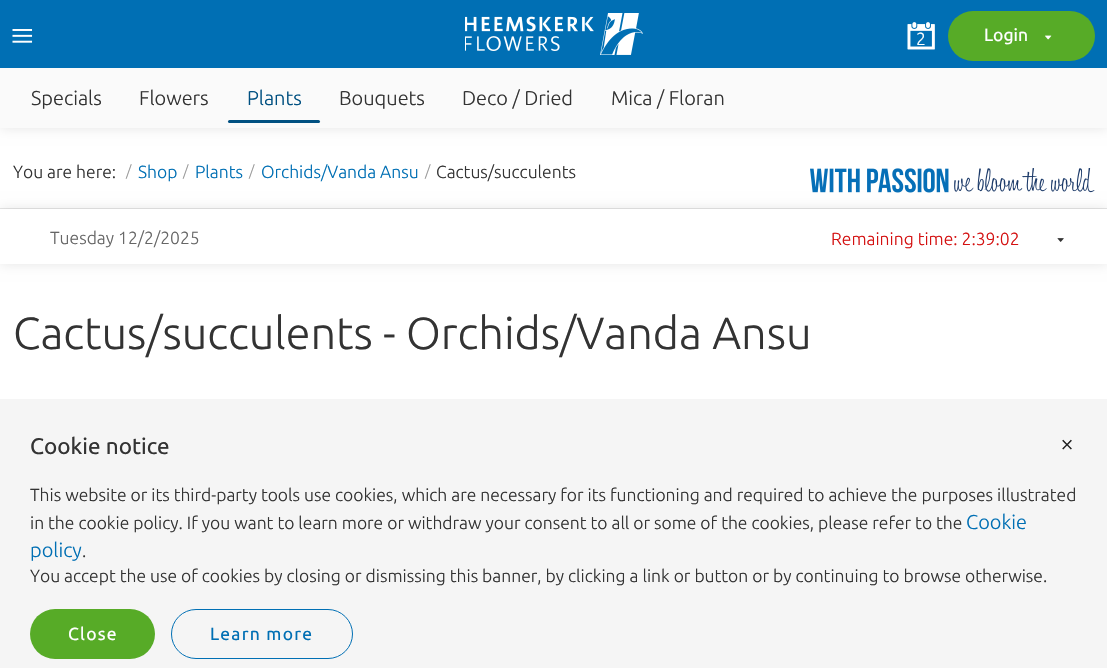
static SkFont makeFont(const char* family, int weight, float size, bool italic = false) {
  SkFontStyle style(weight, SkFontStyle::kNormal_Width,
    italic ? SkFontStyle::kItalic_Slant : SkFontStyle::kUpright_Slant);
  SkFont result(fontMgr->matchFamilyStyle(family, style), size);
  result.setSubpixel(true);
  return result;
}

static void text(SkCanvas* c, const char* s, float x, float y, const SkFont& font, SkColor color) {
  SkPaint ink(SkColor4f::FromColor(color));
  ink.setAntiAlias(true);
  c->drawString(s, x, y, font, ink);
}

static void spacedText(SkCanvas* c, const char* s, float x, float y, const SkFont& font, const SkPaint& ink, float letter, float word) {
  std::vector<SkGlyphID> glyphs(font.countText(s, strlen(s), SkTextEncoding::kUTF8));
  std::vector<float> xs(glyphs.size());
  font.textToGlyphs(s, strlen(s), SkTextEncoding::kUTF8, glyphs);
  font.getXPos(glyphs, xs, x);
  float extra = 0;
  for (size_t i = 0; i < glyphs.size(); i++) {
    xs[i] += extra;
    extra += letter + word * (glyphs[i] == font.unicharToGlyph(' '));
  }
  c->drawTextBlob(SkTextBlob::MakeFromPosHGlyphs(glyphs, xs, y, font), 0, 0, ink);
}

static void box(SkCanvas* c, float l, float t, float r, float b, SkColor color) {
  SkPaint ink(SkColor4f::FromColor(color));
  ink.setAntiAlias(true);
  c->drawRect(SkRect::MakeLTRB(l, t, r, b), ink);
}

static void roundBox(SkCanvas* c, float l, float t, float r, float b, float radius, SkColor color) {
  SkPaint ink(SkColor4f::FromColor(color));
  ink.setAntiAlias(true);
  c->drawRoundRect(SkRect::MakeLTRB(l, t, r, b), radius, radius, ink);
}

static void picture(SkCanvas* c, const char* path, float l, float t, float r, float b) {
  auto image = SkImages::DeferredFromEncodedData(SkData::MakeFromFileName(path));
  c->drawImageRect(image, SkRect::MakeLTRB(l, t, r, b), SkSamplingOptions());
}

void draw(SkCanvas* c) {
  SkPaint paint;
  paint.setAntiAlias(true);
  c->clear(0xffffffff);
  paint.setColor(0x1a000000);
  paint.setMaskFilter(SkMaskFilter::MakeBlur(kNormal_SkBlurStyle, 6));
  c->drawRect(SkRect::MakeLTRB(0, 0, 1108, 128), paint);
  paint.setMaskFilter(nullptr);
  box(c, 0, 0, 1107, 68, 0xff006fb4);
  picture(c, "img_01.png", 12, 29, 33, 43);
  picture(c, "img_02.png", 465, 13, 643, 55);
  SkFont face1 = makeFont("Ubuntu", 300, 17.5f);
  text(c, "2", 916, 45, face1, 0xffffffff);
  picture(c, "img_03.png", 907, 22, 935, 50);
  roundBox(c, 948, 11, 1095, 61, 25, 0xff57ab27);
  SkFont face2 = makeFont("Ubuntu", 400, 17.5f);
  text(c, "Login", 984, 41, face2, 0xffffffff);
  picture(c, "img_04.png", 1045, 35, 1052, 40);
  box(c, 0, 68, 1107, 128, 0xfffafafa);
  SkFont face3 = makeFont("Ubuntu", 300, 20);
  text(c, "Specials", 31, 105, face3, 0xff333333);
  text(c, "Flowers", 139, 105, face3, 0xff333333);
  text(c, "Plants", 247, 105, face3, 0xff005081);
  roundBox(c, 228, 120, 320, 123, 1.5f, 0xff005081);
  text(c, "Bouquets", 339, 105, face3, 0xff333333);
  text(c, "Deco / Dried", 462, 105, face3, 0xff333333);
  text(c, "Mica / Floran", 611, 105, face3, 0xff333333);
  box(c, 0, 208, 1107, 209, 0xffe6e6e6);
  text(c, "You are here:", 13, 178, face1, 0xff333333);
  SkFont face4 = makeFont("Ubuntu", 300, 15);
  text(c, "/", 126, 176, face4, 0xff999999);
  text(c, "Shop", 138, 178, face1, 0xff006fb4);
  text(c, "/", 183, 176, face4, 0xff999999);
  text(c, "Plants", 195, 178, face1, 0xff006fb4);
  text(c, "/", 249, 176, face4, 0xff999999);
  text(c, "Orchids/Vanda Ansu", 261, 178, face1, 0xff006fb4);
  text(c, "/", 425, 176, face4, 0xff999999);
  text(c, "Cactus/succulents", 436, 178, face1, 0xff333333);
  picture(c, "img_05.png", 810, 168, 1095, 193);
  paint.setMaskFilter(SkMaskFilter::MakeBlur(kNormal_SkBlurStyle, 6));
  c->drawRect(SkRect::MakeLTRB(0, 209, 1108, 264), paint);
  paint.setMaskFilter(nullptr);
  box(c, 0, 209, 1107, 264, 0xffffffff);
  text(c, "Tuesday 12/2/2025", 50, 244, face1, 0xff666666);
  text(c, "Remaining time: 2:39:02", 831, 245, face1, 0xffd41111);
  picture(c, "img_06.png", 1057, 238, 1064, 242);
  SkFont face5 = makeFont("Ubuntu", 300, 45);
  text(c, "Cactus/succulents - Orchids/Vanda Ansu", 13, 349, face5, 0xff333333);
  box(c, 0, 399, 1107, 668, 0xfff5f5f5);
  SkFont face6 = makeFont("Ubuntu", 400, 22.5f);
  text(c, "Cookie notice", 30, 454, face6, 0xff333333);
  text(c, "This website or its third-party tools use cookies, which are necessary for its functioning and required to achieve the purposes illustrated", 30, 501, face1, 0xff333333);
  text(c, "in the cookie policy. If you want to learn more or withdraw your consent to all or some of the cookies, please refer to the", 30, 529, face1, 0xff333333);
  text(c, "Cookie", 966, 529, face3, 0xff006fb4);
  text(c, "policy", 30, 557, face3, 0xff006fb4);
  text(c, ".", 82, 557, face1, 0xff333333);
  text(c, "You accept the use of cookies by closing or dismissing this banner, by clicking a link or button or by continuing to browse otherwise.", 30, 582, face1, 0xff333333);
  SkFont face7 = makeFont("Ubuntu", 300, 25);
  paint.setColor(0xff222222);
  spacedText(c, "×", 1060, 452, face7, paint, 1.25f, 0);
  roundBox(c, 30, 609, 155, 659, 25, 0xff57ab27);
  paint.setColor(0xffffffff);
  spacedText(c, "Close", 68, 640, face2, paint, 1.25f, 0);
  paint.setStyle(SkPaint::kStroke_Style);
  paint.setStrokeWidth(1);
  paint.setColor(0xff006fb4);
  c->drawRoundRect(SkRect::MakeLTRB(171.5f, 609.5f, 352.5f, 658.5f), 24.5f, 24.5f, paint);
  paint.setStyle(SkPaint::kFill_Style);
  spacedText(c, "Learn more", 210, 640, face2, paint, 1.25f, 0);
}
